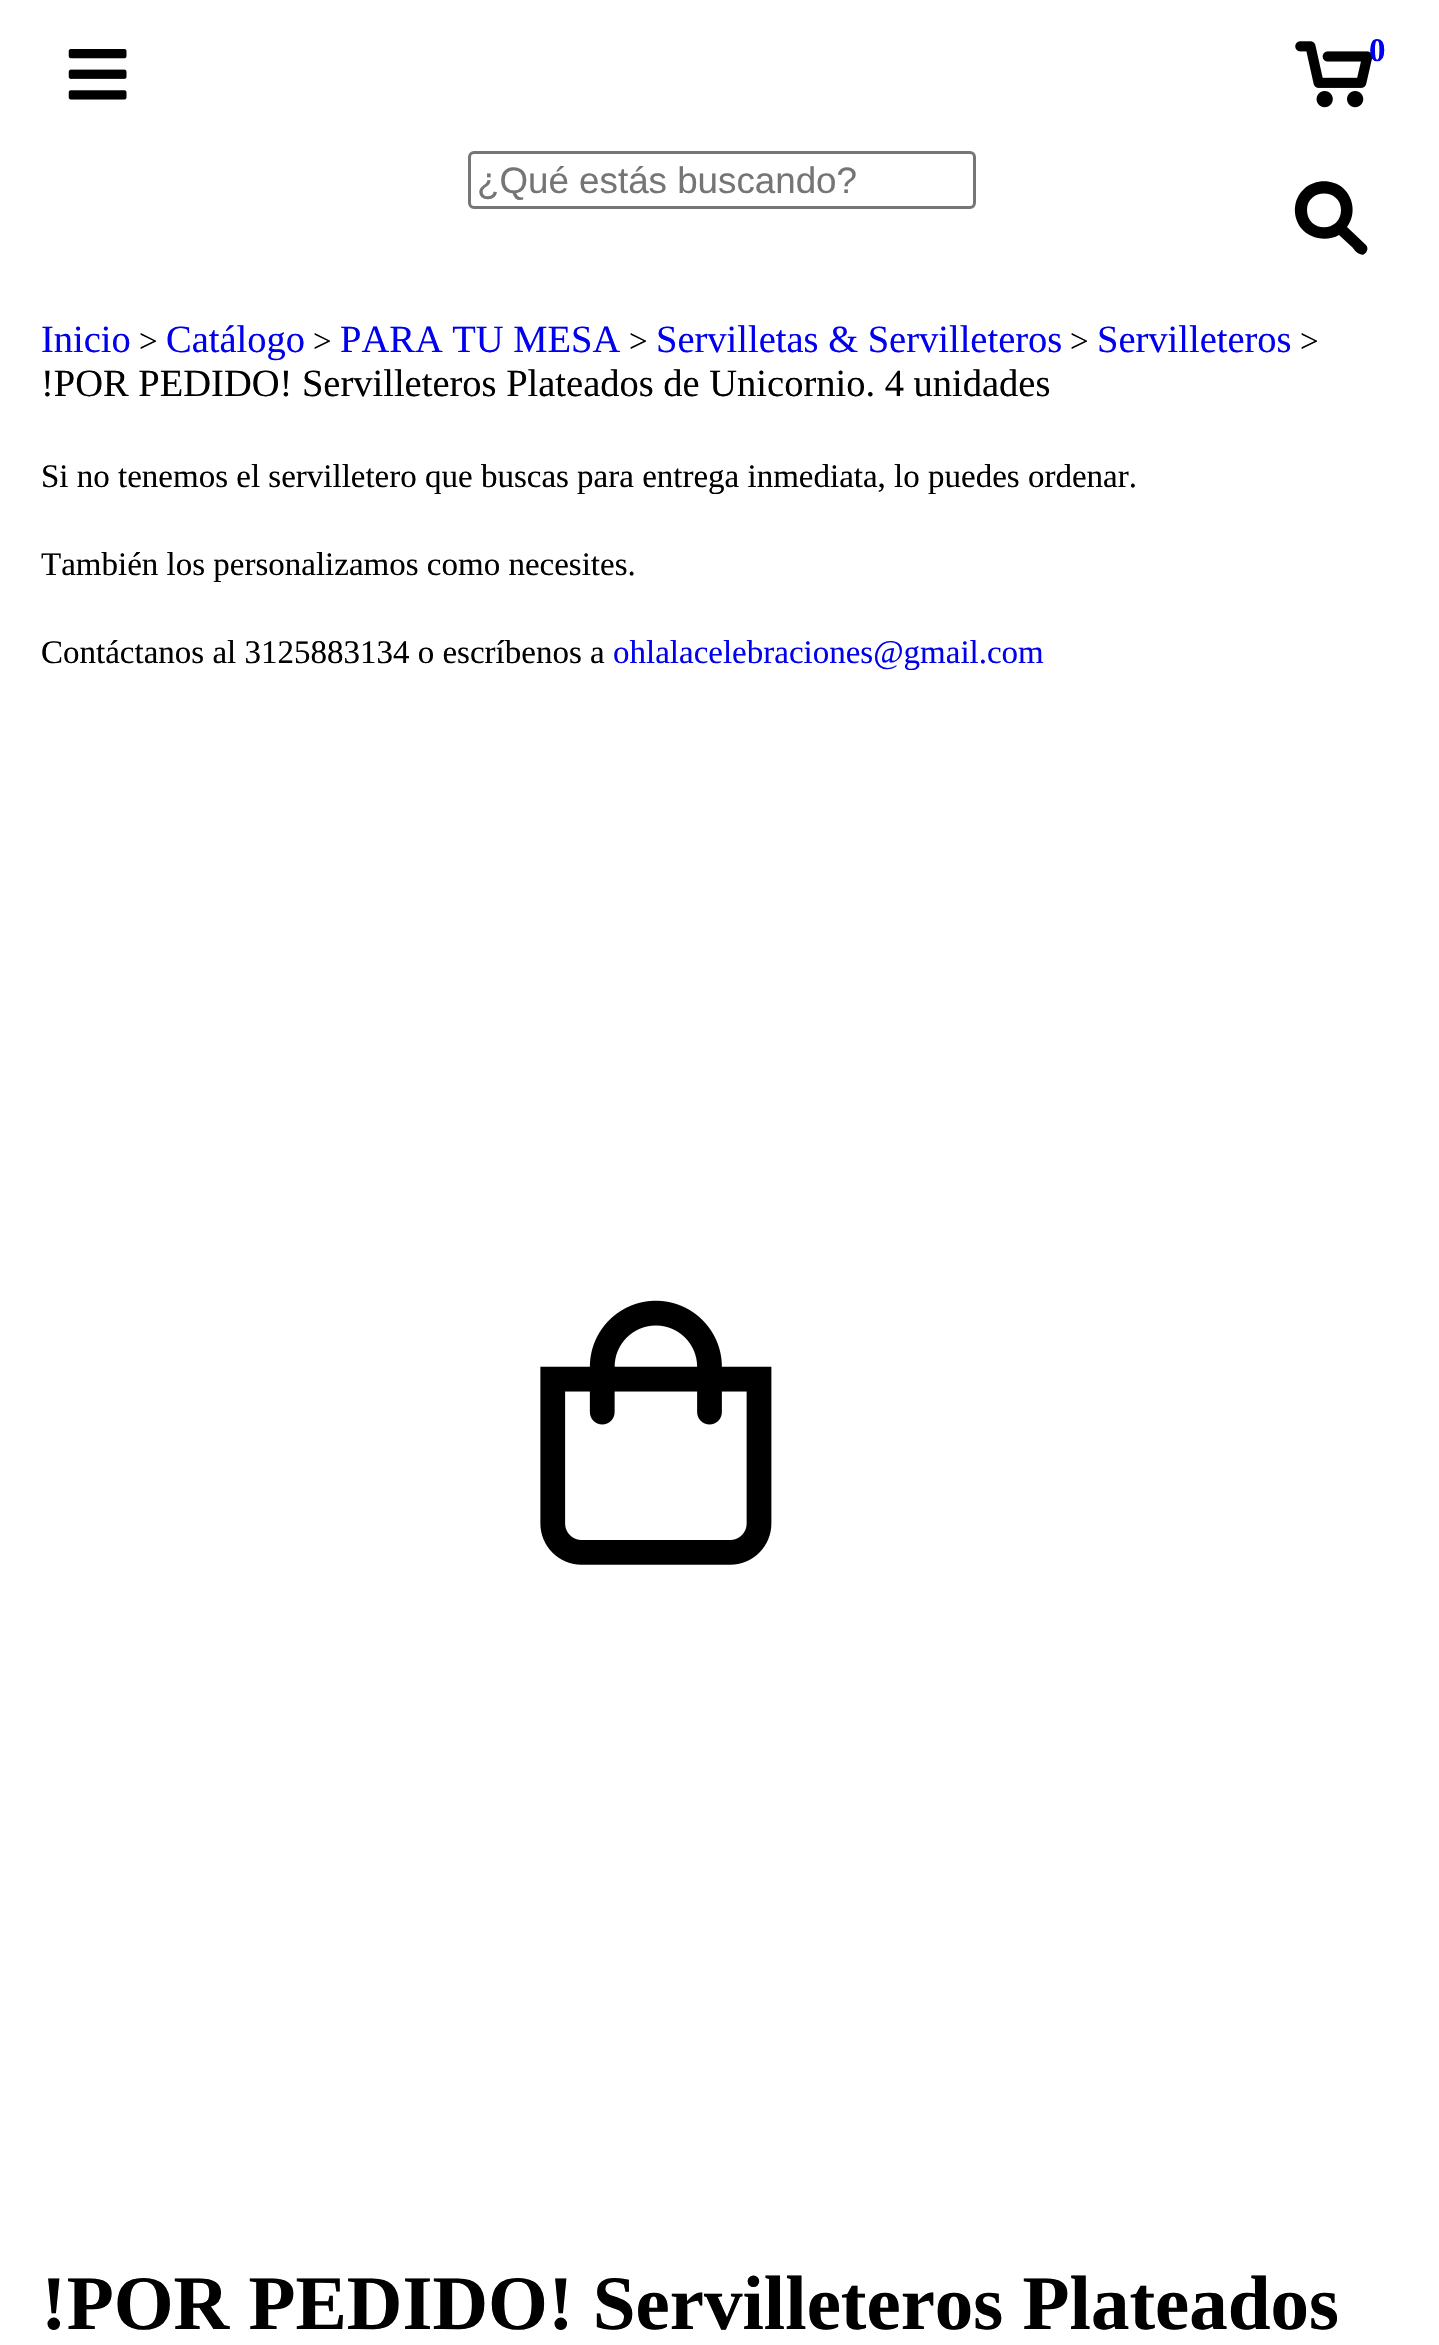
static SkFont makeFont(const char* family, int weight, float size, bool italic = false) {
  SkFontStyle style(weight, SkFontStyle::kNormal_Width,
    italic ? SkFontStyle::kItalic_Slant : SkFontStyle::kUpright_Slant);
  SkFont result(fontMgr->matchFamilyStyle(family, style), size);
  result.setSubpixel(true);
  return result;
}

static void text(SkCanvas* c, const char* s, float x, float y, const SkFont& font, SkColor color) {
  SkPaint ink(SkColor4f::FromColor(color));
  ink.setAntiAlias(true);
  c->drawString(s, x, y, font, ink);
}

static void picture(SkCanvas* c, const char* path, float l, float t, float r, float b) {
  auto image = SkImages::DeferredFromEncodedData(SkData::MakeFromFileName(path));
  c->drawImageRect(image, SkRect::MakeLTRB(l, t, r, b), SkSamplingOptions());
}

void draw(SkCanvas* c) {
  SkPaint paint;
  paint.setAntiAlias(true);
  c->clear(0xffffffff);
  picture(c, "img_01.png", 68, 49, 127, 100);
  picture(c, "img_02.png", 1295, 41, 1373, 108);
  SkFont face1 = makeFont("Liberation Serif", 700, 33);
  text(c, "0", 1369, 61, face1, 0xff0000ee);
  paint.setStyle(SkPaint::kStroke_Style);
  paint.setStrokeWidth(3);
  paint.setColor(0xff767676);
  c->drawRoundRect(SkRect::MakeLTRB(469.5f, 152.5f, 974.5f, 207.5f), 4.5f, 4.5f, paint);
  SkFont face2 = makeFont("Liberation Sans", 400, 36.75f);
  text(c, "¿Qué estás buscando?", 477, 193, face2, 0xff757575);
  paint.setStyle(SkPaint::kFill_Style);
  paint.setColor(0xff000000);
  c->drawPath(SkPathBuilder().moveTo(1366, 245).lineTo(1347, 227).cubicTo(1356, 215, 1354, 198, 1343, 188).cubicTo(1332, 179, 1315, 179, 1304, 189).cubicTo(1293, 199, 1292, 216, 1301, 228).cubicTo(1310, 239, 1327, 242, 1339, 235).lineTo(1352, 247).cubicTo(1354, 249, 1356, 253, 1360, 254).cubicTo(1365, 257, 1370, 249, 1366, 245).close().moveTo(1307, 210).cubicTo(1307, 188, 1341, 188, 1341, 210).cubicTo(1341, 233, 1307, 233, 1307, 210).close().detach(), paint);
  SkFont face3 = makeFont("Liberation Serif", 400, 38.5f);
  text(c, "Inicio", 41, 352, face3, 0xff0000ee);
  SkFont face4 = makeFont("Liberation Serif", 400, 33);
  text(c, ">", 139, 352, face4, 0xff000000);
  text(c, "Catálogo", 166, 352, face3, 0xff0000ee);
  text(c, ">", 313, 352, face4, 0xff000000);
  text(c, "PARA TU MESA", 340, 352, face3, 0xff0000ee);
  text(c, ">", 629, 352, face4, 0xff000000);
  text(c, "Servilletas & Servilleteros", 656, 352, face3, 0xff0000ee);
  text(c, ">", 1070, 352, face4, 0xff000000);
  text(c, "Servilleteros", 1097, 352, face3, 0xff0000ee);
  text(c, ">", 1300, 352, face4, 0xff000000);
  text(c, "!POR PEDIDO! Servilleteros Plateados de Unicornio. 4 unidades", 41, 396, face3, 0xff000000);
  text(c, "Si no tenemos el servilletero que buscas para entrega inmediata, lo puedes ordenar.", 41, 487, face4, 0xff000000);
  text(c, "También los personalizamos como necesites.", 41, 575, face4, 0xff000000);
  text(c, "Contáctanos al 3125883134 o escríbenos a", 41, 663, face4, 0xff000000);
  text(c, "ohlalacelebraciones@gmail.com", 613, 663, face4, 0xff0000ee);
  picture(c, "img_03.png", 540, 1300, 772, 1565);
  SkFont face5 = makeFont("Liberation Serif", 700, 77);
  text(c, "!POR PEDIDO! Servilleteros Plateados", 41, 2329, face5, 0xff000000);
}
